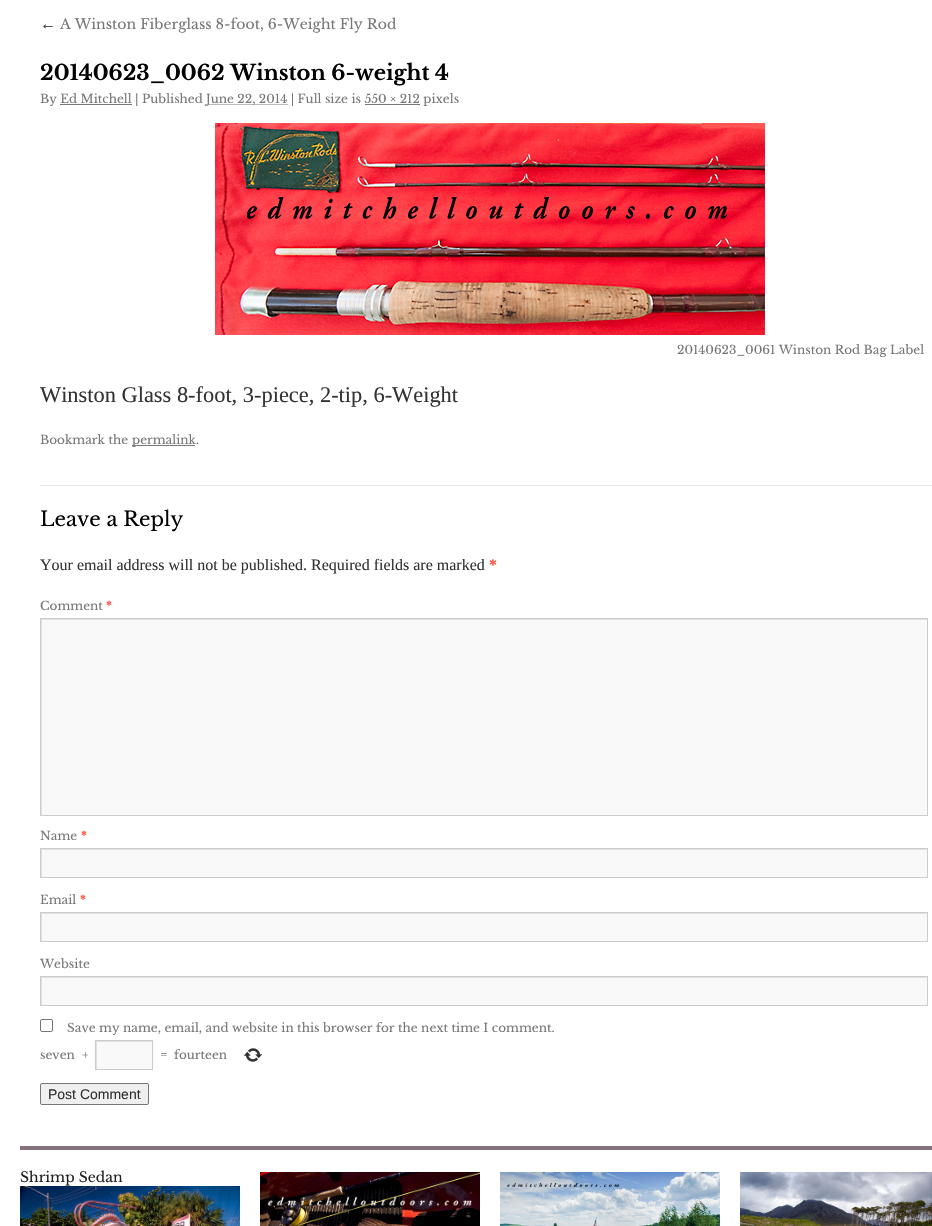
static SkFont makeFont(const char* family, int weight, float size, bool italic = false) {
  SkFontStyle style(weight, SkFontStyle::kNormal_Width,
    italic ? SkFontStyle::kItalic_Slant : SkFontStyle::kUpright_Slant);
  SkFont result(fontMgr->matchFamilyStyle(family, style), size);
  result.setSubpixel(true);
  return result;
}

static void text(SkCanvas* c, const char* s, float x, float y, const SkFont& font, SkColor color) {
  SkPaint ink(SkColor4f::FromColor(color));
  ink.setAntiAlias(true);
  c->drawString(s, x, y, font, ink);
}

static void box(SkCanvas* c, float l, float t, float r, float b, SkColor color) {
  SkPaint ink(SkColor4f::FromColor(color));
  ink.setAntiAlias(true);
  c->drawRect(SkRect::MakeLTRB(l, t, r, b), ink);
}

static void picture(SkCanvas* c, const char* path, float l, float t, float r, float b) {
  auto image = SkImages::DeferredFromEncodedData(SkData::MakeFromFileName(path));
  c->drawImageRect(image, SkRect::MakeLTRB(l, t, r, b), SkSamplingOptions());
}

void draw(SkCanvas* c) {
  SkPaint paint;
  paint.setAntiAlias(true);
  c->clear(0xffffffff);
  SkFont face1 = makeFont("Liberation Serif", 400, 16, true);
  text(c, "←", 40, 29, face1, 0xff333333);
  SkFont face2 = makeFont("Libre Baskerville", 400, 14);
  text(c, "A Winston Fiberglass 8-foot, 6-Weight Fly Rod", 60, 29, face2, 0xff777777);
  SkFont face3 = makeFont("Libre Baskerville", 700, 21);
  text(c, "20140623_0062 Winston 6-weight 4", 40, 80, face3, 0xff000000);
  SkFont face4 = makeFont("Libre Baskerville", 400, 12);
  text(c, "By Ed Mitchell | Published", 40, 103, face4, 0xff777777);
  paint.setStyle(SkPaint::kStroke_Style);
  paint.setStrokeWidth(1);
  paint.setColor(0xff777777);
  paint.setPathEffect(SkDashPathEffect::Make({{1, 1}}, 0));
  c->drawPath(SkPathBuilder().moveTo(206.5f, 104.5f).lineTo(287.5f, 104.5f).detach(), paint);
  paint.setPathEffect(nullptr);
  text(c, "June 22, 2014 | Full size is 550 × 212 pixels", 206, 103, face4, 0xff777777);
  box(c, 60, 104, 132, 105, 0xff777777);
  box(c, 365, 104, 420, 105, 0xff777777);
  picture(c, "img_01.png", 215, 123, 765, 335);
  text(c, "20140623_0061 Winston Rod Bag Label", 677, 354, face4, 0xff777777);
  SkFont face5 = makeFont("Liberation Serif", 400, 22.4f);
  text(c, "Winston Glass 8-foot, 3-piece, 2-tip, 6-Weight", 40, 402, face5, 0xff333333);
  text(c, "Bookmark the", 40, 444, face4, 0xff777777);
  box(c, 132, 445, 195, 446, 0xff777777);
  text(c, "permalink.", 132, 444, face4, 0xff777777);
  box(c, 40, 485, 932, 486, 0xffe7e7e7);
  SkFont face6 = makeFont("Libre Baskerville", 400, 20);
  text(c, "Leave a Reply", 40, 526, face6, 0xff000000);
  SkFont face7 = makeFont("Liberation Serif", 400, 16);
  text(c, "Your email address will not be published. Required fields are marked", 40, 570, face7, 0xff333333);
  SkFont face8 = makeFont("Liberation Serif", 700, 16);
  text(c, "*", 489, 570, face8, 0xffff4b33);
  text(c, "Comment", 40, 610, face4, 0xff777777);
  SkFont face9 = makeFont("Libre Baskerville", 700, 12);
  text(c, "*", 106, 610, face9, 0xffff4b33);
  box(c, 42, 620, 927, 815, 0xfff9f9f9);
  c->save();
  c->clipRect(SkRect::MakeLTRB(41, 619, 927, 815));
  paint.setStyle(SkPaint::kFill_Style);
  paint.setColor(0xffe0e0e0);
  c->drawPath(SkPathBuilder(SkPathFillType::kEvenOdd).moveTo(-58, 520).lineTo(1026, 520).lineTo(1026, 914).lineTo(-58, 914).close().moveTo(42, 620).lineTo(928, 620).lineTo(928, 816).lineTo(42, 816).close().detach(), paint);
  c->restore();
  paint.setStyle(SkPaint::kStroke_Style);
  paint.setColor(0xffcccccc);
  c->drawRect(SkRect::MakeLTRB(40.5f, 618.5f, 927.5f, 815.5f), paint);
  text(c, "Name", 40, 840, face4, 0xff777777);
  text(c, "*", 81, 840, face9, 0xffff4b33);
  box(c, 42, 850, 927, 877, 0xfff9f9f9);
  c->save();
  c->clipRect(SkRect::MakeLTRB(41, 849, 927, 877));
  paint.setStyle(SkPaint::kFill_Style);
  paint.setColor(0xffe0e0e0);
  c->drawPath(SkPathBuilder(SkPathFillType::kEvenOdd).moveTo(-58, 750).lineTo(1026, 750).lineTo(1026, 976).lineTo(-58, 976).close().moveTo(42, 850).lineTo(928, 850).lineTo(928, 878).lineTo(42, 878).close().detach(), paint);
  c->restore();
  paint.setStyle(SkPaint::kStroke_Style);
  paint.setColor(0xffcccccc);
  c->drawRect(SkRect::MakeLTRB(40.5f, 848.5f, 927.5f, 877.5f), paint);
  text(c, "Email", 40, 904, face4, 0xff777777);
  text(c, "*", 80, 904, face9, 0xffff4b33);
  box(c, 42, 914, 927, 941, 0xfff9f9f9);
  c->save();
  c->clipRect(SkRect::MakeLTRB(41, 913, 927, 941));
  paint.setStyle(SkPaint::kFill_Style);
  paint.setColor(0xffe0e0e0);
  c->drawPath(SkPathBuilder(SkPathFillType::kEvenOdd).moveTo(-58, 814).lineTo(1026, 814).lineTo(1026, 1040).lineTo(-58, 1040).close().moveTo(42, 914).lineTo(928, 914).lineTo(928, 942).lineTo(42, 942).close().detach(), paint);
  c->restore();
  paint.setStyle(SkPaint::kStroke_Style);
  paint.setColor(0xffcccccc);
  c->drawRect(SkRect::MakeLTRB(40.5f, 912.5f, 927.5f, 941.5f), paint);
  text(c, "Website", 40, 968, face4, 0xff777777);
  box(c, 42, 978, 927, 1005, 0xfff9f9f9);
  c->save();
  c->clipRect(SkRect::MakeLTRB(41, 977, 927, 1005));
  paint.setStyle(SkPaint::kFill_Style);
  paint.setColor(0xffe0e0e0);
  c->drawPath(SkPathBuilder(SkPathFillType::kEvenOdd).moveTo(-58, 878).lineTo(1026, 878).lineTo(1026, 1104).lineTo(-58, 1104).close().moveTo(42, 978).lineTo(928, 978).lineTo(928, 1006).lineTo(42, 1006).close().detach(), paint);
  c->restore();
  paint.setStyle(SkPaint::kStroke_Style);
  paint.setColor(0xffcccccc);
  c->drawRect(SkRect::MakeLTRB(40.5f, 976.5f, 927.5f, 1005.5f), paint);
  paint.setColor(0xff767676);
  c->drawRoundRect(SkRect::MakeLTRB(40.5f, 1019.5f, 52.5f, 1031.5f), 1.5f, 1.5f, paint);
  text(c, "Save my name, email, and website in this browser for the next time I comment.", 67, 1032, face4, 0xff777777);
  text(c, "seven", 40, 1059, face4, 0xff777777);
  text(c, "+", 82, 1059, face4, 0xff777777);
  box(c, 97, 1042, 152, 1069, 0xfff9f9f9);
  c->save();
  c->clipRect(SkRect::MakeLTRB(96, 1041, 152, 1069));
  paint.setStyle(SkPaint::kFill_Style);
  paint.setColor(0xffe0e0e0);
  c->drawPath(SkPathBuilder(SkPathFillType::kEvenOdd).moveTo(-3, 942).lineTo(251, 942).lineTo(251, 1168).lineTo(-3, 1168).close().moveTo(97, 1042).lineTo(153, 1042).lineTo(153, 1070).lineTo(97, 1070).close().detach(), paint);
  c->restore();
  paint.setStyle(SkPaint::kStroke_Style);
  paint.setColor(0xffcccccc);
  c->drawRect(SkRect::MakeLTRB(95.5f, 1040.5f, 152.5f, 1069.5f), paint);
  text(c, "=", 160, 1059, face4, 0xff777777);
  text(c, "fourteen", 174, 1059, face4, 0xff777777);
  picture(c, "img_02.png", 243, 1048, 263, 1062);
  paint.setStyle(SkPaint::kFill_Style);
  paint.setColor(0xffefefef);
  c->drawRoundRect(SkRect::MakeLTRB(40.5f, 1083.5f, 148.5f, 1104.5f), 1.5f, 1.5f, paint);
  paint.setStyle(SkPaint::kStroke_Style);
  paint.setColor(0xff767676);
  c->drawRoundRect(SkRect::MakeLTRB(40.5f, 1083.5f, 148.5f, 1104.5f), 1.5f, 1.5f, paint);
  SkFont face10 = makeFont("Liberation Sans", 400, 14);
  text(c, "Post Comment", 48, 1099, face10, 0xff333333);
  box(c, 20, 1146, 932, 1150, 0xff84737c);
  text(c, "Shrimp Sedan", 20, 1182, face2, 0xff222222);
  picture(c, "img_03.png", 20, 1186, 240, 1226);
  picture(c, "img_04.png", 260, 1172, 480, 1226);
  picture(c, "img_05.png", 500, 1172, 720, 1226);
  picture(c, "img_06.png", 740, 1172, 932, 1226);
}
